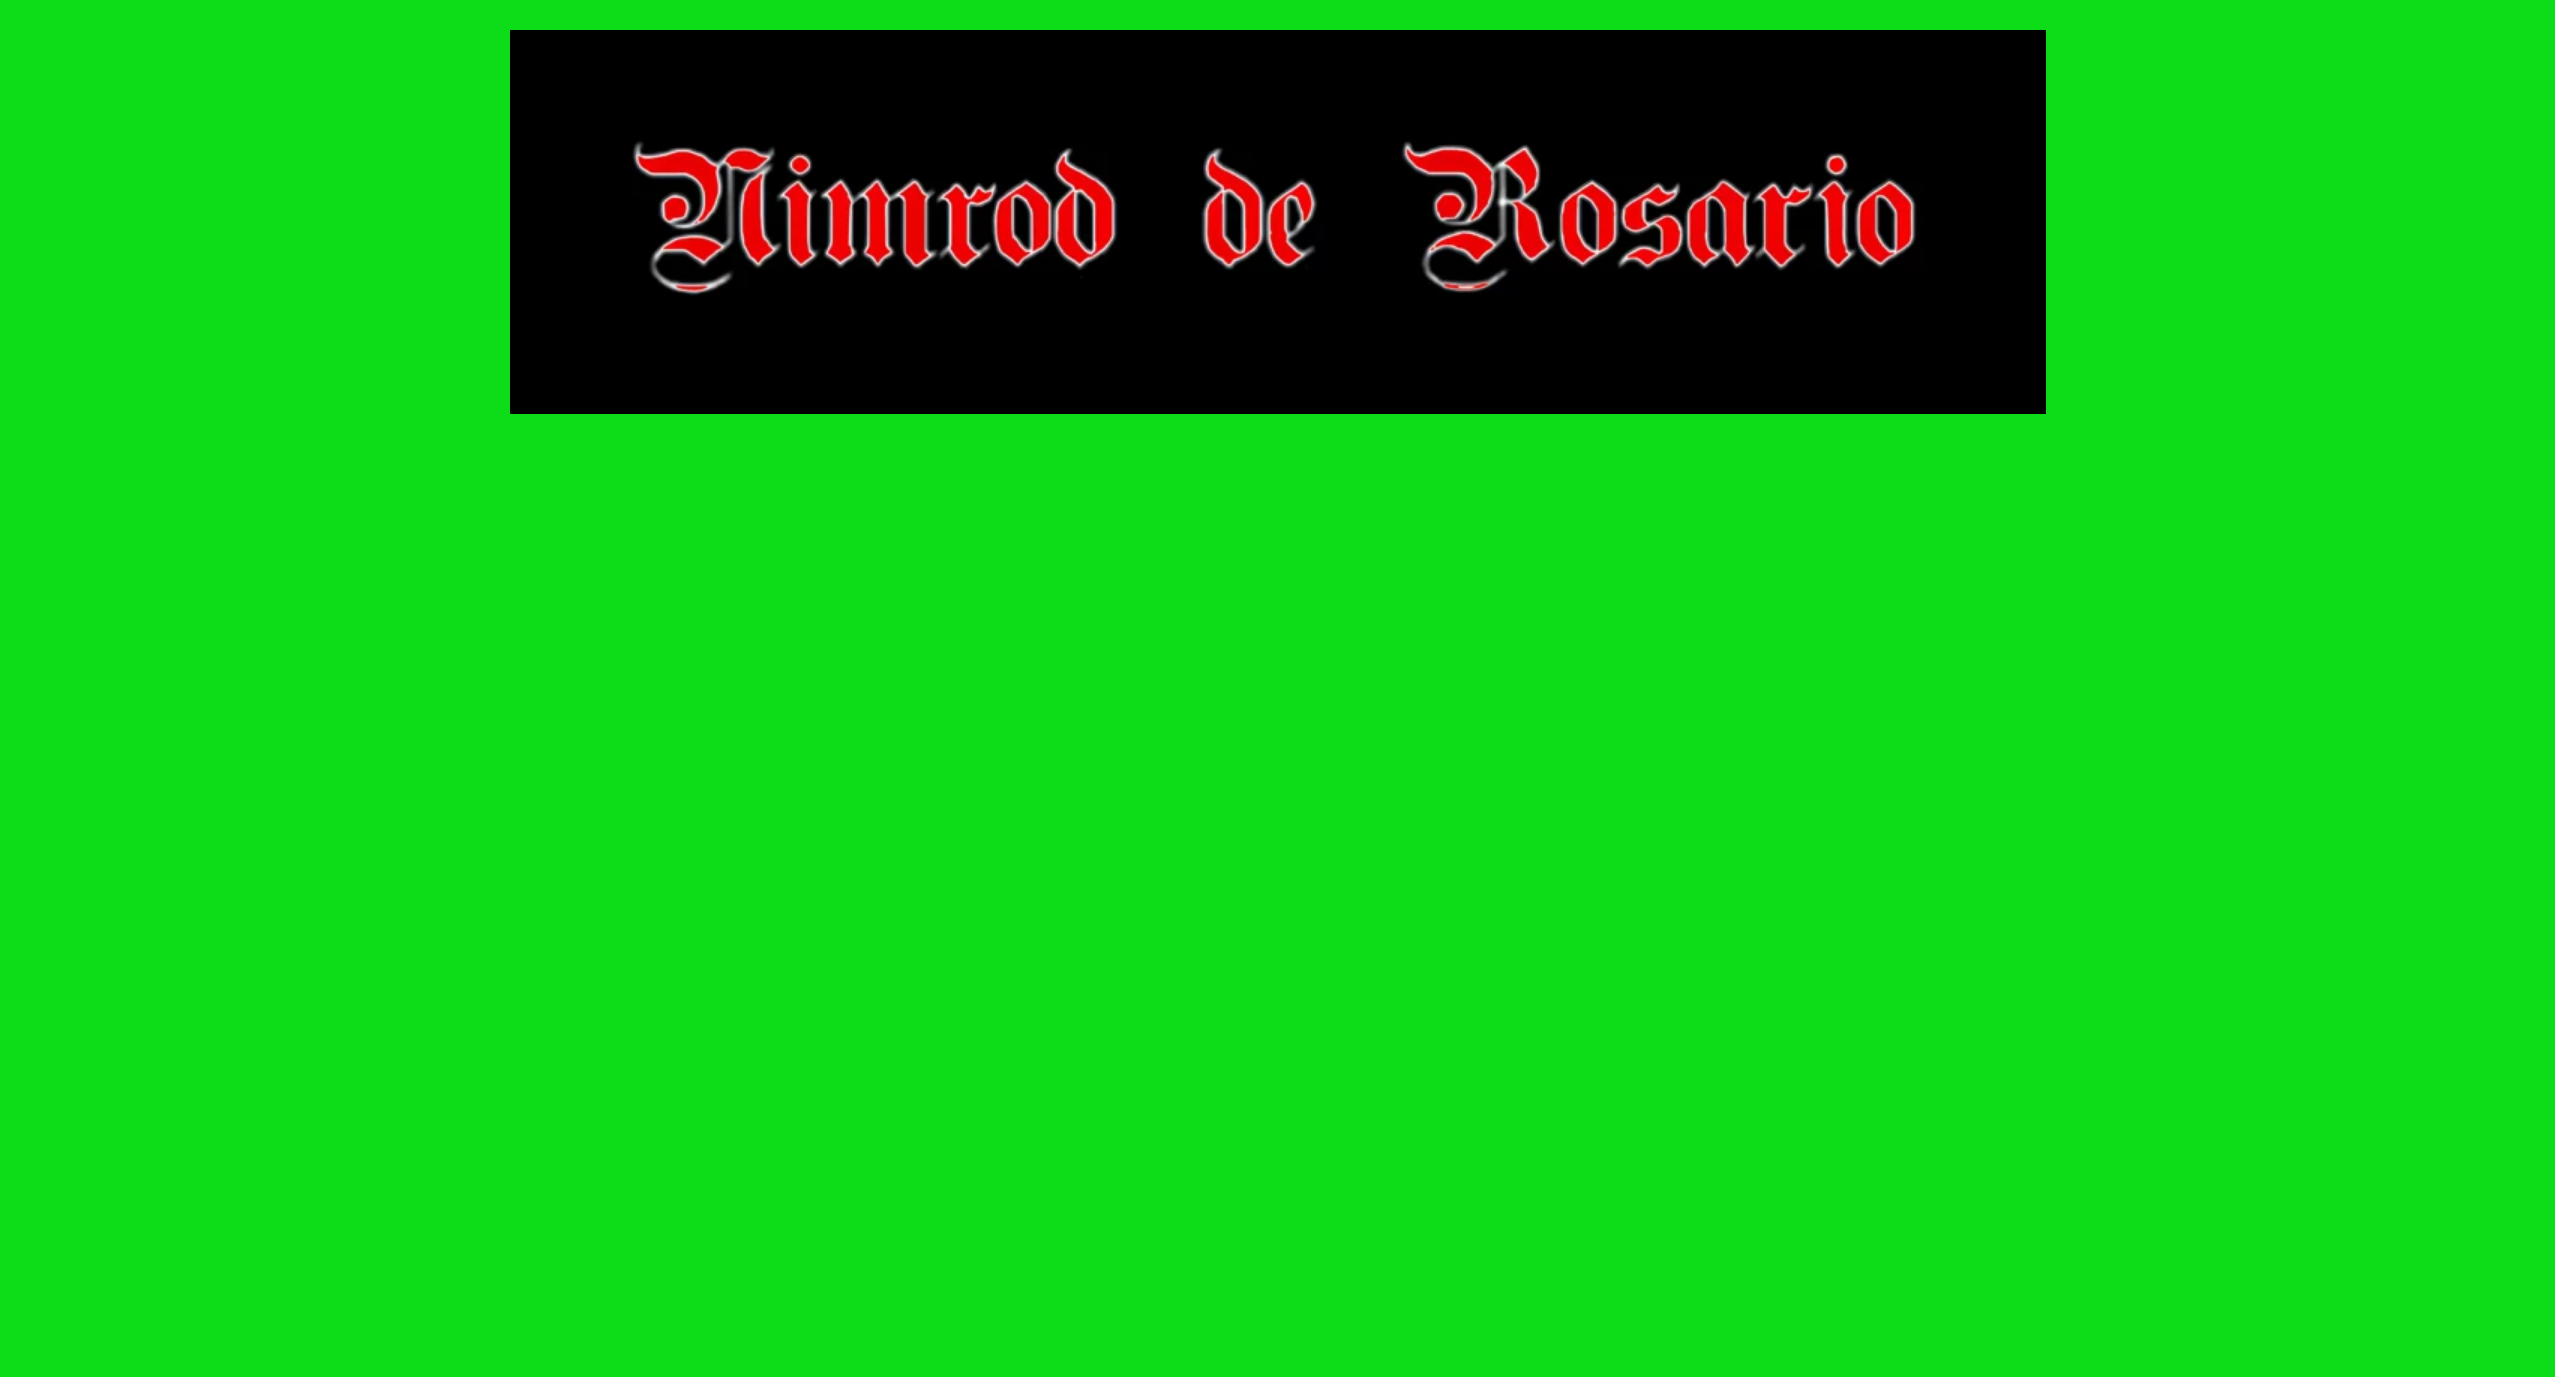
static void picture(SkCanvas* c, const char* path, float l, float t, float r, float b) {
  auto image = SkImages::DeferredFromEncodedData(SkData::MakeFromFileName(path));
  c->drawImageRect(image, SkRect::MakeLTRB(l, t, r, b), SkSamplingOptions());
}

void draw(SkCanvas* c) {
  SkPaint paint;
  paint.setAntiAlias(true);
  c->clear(0xff0cdd18);
  picture(c, "img_01.png", 510, 30, 2046, 414);
}
